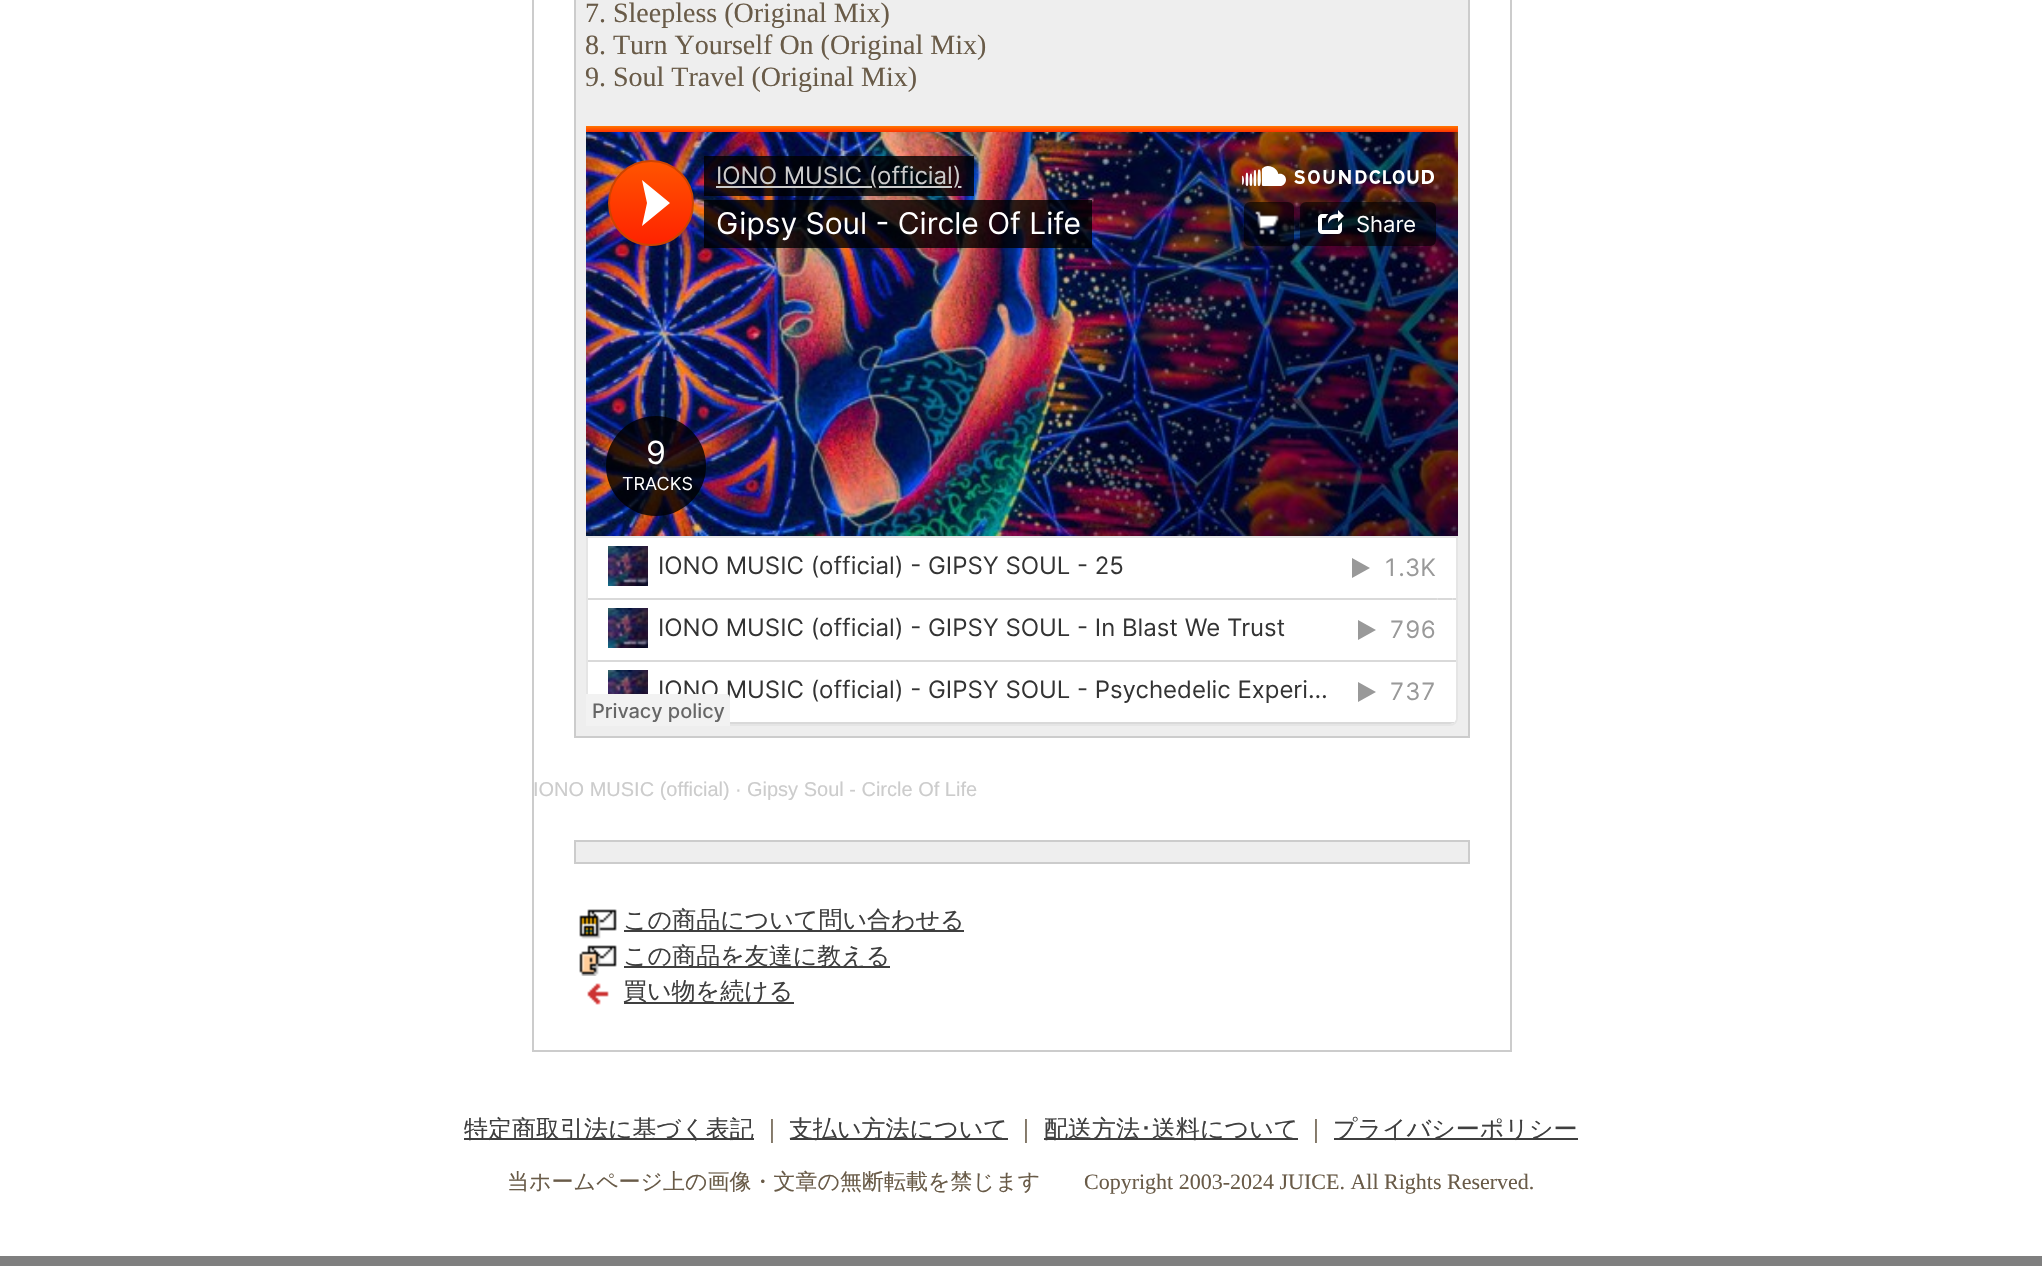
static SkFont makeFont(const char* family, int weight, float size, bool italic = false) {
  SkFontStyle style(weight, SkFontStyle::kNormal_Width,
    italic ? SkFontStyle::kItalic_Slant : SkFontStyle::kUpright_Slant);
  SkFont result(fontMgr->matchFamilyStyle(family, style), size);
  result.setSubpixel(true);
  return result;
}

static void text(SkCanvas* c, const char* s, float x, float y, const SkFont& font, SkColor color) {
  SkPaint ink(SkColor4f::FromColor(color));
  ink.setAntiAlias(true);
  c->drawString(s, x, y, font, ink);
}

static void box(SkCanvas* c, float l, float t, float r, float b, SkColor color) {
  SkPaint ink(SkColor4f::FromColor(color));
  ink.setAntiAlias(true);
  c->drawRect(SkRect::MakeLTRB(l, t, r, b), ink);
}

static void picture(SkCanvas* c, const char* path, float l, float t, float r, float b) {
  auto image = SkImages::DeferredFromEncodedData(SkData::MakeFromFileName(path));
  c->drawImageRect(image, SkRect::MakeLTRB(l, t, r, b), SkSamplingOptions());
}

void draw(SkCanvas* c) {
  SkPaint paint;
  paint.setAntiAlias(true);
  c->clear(0xffffffff);
  box(c, 0, 1256, 2042, 1266, 0xff7f7f7f);
  paint.setStyle(SkPaint::kStroke_Style);
  paint.setStrokeWidth(2);
  paint.setColor(0xffcccccc);
  c->drawRect(SkRect::MakeLTRB(533, -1, 1511, 1051), paint);
  paint.setStyle(SkPaint::kFill_Style);
  paint.setColor(0xffeeeeee);
  c->drawRect(SkRect::MakeLTRB(575, -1, 1469, 737), paint);
  paint.setStyle(SkPaint::kStroke_Style);
  paint.setColor(0xffcccccc);
  c->drawRect(SkRect::MakeLTRB(575, -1, 1469, 737), paint);
  SkFont face1 = makeFont("Liberation Serif", 400, 28);
  text(c, "7. Sleepless (Original Mix)", 585, 22, face1, 0xff695b48);
  text(c, "8. Turn Yourself On (Original Mix)", 585, 54, face1, 0xff695b48);
  text(c, "9. Soul Travel (Original Mix)", 585, 86, face1, 0xff695b48);
  picture(c, "img_01.png", 586, 126, 1458, 726);
  c->save();
  c->clipRect(SkRect::MakeLTRB(534, 778, 1510, 800));
  SkFont face2 = makeFont("Liberation Sans", 400, 20);
  text(c, "IONO MUSIC (official)", 533, 796, face2, 0xffcccccc);
  c->restore();
  text(c, "·", 735, 796, face2, 0xffcccccc);
  c->save();
  c->clipRect(SkRect::MakeLTRB(534, 778, 1510, 800));
  text(c, "Gipsy Soul - Circle Of Life", 747, 796, face2, 0xffcccccc);
  c->restore();
  paint.setStyle(SkPaint::kFill_Style);
  paint.setColor(0xffeeeeee);
  c->drawRect(SkRect::MakeLTRB(575, 841, 1469, 863), paint);
  paint.setStyle(SkPaint::kStroke_Style);
  paint.setColor(0xffcccccc);
  c->drawRect(SkRect::MakeLTRB(575, 841, 1469, 863), paint);
  picture(c, "img_02.png", 579, 909, 617, 939);
  box(c, 624, 930, 964, 932, 0xff3f3f3f);
  SkFont face3 = makeFont("WenQuanYi Zen Hei", 500, 24);
  text(c, "この商品について問い合わせる", 623, 928, face3, 0xff3f3f3f);
  picture(c, "img_03.png", 579, 945, 617, 976);
  box(c, 624, 966, 890, 968, 0xff3f3f3f);
  text(c, "この商品を友達に教える", 623, 964, face3, 0xff3f3f3f);
  picture(c, "img_04.png", 587, 983, 609, 1005);
  box(c, 624, 1002, 794, 1004, 0xff3f3f3f);
  text(c, "買い物を続ける", 623, 999, face3, 0xff3f3f3f);
  box(c, 464, 1138, 754, 1140, 0xff3f3f3f);
  text(c, "特定商取引法に基づく表記", 464, 1137, face3, 0xff3f3f3f);
  text(c, "｜", 760, 1137, face3, 0xff695b48);
  box(c, 790, 1138, 1008, 1140, 0xff3f3f3f);
  text(c, "支払い方法について", 789, 1137, face3, 0xff3f3f3f);
  text(c, "｜", 1014, 1137, face3, 0xff695b48);
  box(c, 1044, 1138, 1298, 1140, 0xff3f3f3f);
  text(c, "配送方法", 1044, 1137, face3, 0xff3f3f3f);
  SkFont face4 = makeFont("IPAPGothic", 400, 24);
  text(c, "･", 1140, 1137, face4, 0xff3f3f3f);
  text(c, "送料について", 1152, 1137, face3, 0xff3f3f3f);
  text(c, "｜", 1304, 1137, face3, 0xff695b48);
  box(c, 1334, 1138, 1578, 1140, 0xff3f3f3f);
  text(c, "プライバシーポリシー", 1333, 1137, face3, 0xff3f3f3f);
  SkFont face5 = makeFont("WenQuanYi Zen Hei", 500, 22);
  text(c, "当ホームページ上の画像・文章の無断転載を禁じます", 507, 1189, face5, 0xff695b48);
  SkFont face6 = makeFont("Liberation Serif", 400, 22);
  text(c, "Copyright 2003-2024 JUICE. All Rights Reserved.", 1084, 1189, face6, 0xff695b48);
}
